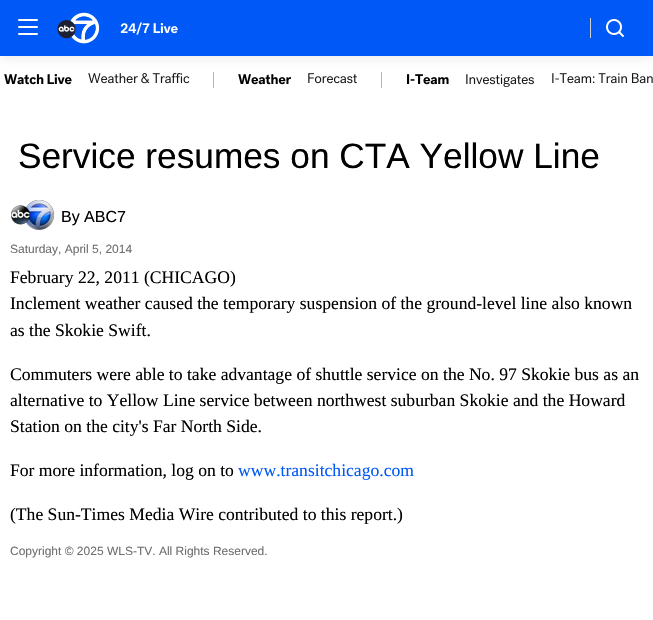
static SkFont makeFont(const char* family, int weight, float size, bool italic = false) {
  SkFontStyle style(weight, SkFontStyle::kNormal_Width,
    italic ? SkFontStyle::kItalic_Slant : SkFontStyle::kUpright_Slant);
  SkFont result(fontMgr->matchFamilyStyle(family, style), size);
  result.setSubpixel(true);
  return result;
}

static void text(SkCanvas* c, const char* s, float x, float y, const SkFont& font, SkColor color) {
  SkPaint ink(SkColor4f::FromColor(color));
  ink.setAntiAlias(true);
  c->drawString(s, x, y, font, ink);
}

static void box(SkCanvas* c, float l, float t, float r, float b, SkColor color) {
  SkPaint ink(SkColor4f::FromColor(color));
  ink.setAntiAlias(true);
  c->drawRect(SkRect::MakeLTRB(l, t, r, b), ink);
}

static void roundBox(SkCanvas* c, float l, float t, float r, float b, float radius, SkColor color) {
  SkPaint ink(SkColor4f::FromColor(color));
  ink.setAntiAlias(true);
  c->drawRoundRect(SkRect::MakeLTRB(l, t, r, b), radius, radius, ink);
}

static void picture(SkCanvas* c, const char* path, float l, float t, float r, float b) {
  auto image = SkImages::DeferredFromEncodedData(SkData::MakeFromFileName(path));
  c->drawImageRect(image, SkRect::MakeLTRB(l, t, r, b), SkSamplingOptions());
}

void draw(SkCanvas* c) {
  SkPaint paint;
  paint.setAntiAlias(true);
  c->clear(0xffffffff);
  picture(c, "img_05.png", 88, 73, 190, 84);
  box(c, 213, 72, 214, 88, 0xffb0b5be);
  picture(c, "img_07.png", 308, 73, 357, 84);
  box(c, 381, 72, 382, 88, 0xffb0b5be);
  picture(c, "img_10.png", 552, 73, 653, 84);
  paint.setColor(0x14000000);
  paint.setMaskFilter(SkMaskFilter::MakeBlur(kNormal_SkBlurStyle, 5));
  c->drawRect(SkRect::MakeLTRB(0, 2, 653, 58), paint);
  paint.setMaskFilter(nullptr);
  box(c, 0, 0, 653, 56, 0xff0058f6);
  roundBox(c, 18, 26, 38, 28, 1, 0xffffffff);
  roundBox(c, 18, 19, 38, 21, 1, 0xffffffff);
  roundBox(c, 18, 33, 38, 35, 1, 0xffffffff);
  picture(c, "img_01.png", 57, 12, 100, 44);
  picture(c, "img_02.png", 120, 22, 178, 35);
  box(c, 590, 18, 591, 38, 0xffcecfcf);
  picture(c, "img_03.png", 606, 19, 624, 37);
  picture(c, "img_04.png", 4, 74, 72, 85);
  picture(c, "img_06.png", 238, 74, 292, 85);
  picture(c, "img_08.png", 407, 74, 449, 85);
  picture(c, "img_09.png", 466, 74, 534, 87);
  SkFont face1 = makeFont("Liberation Sans", 400, 35.25f);
  text(c, "Service resumes on CTA Yellow Line", 18, 168, face1, 0xff000000);
  picture(c, "img_11.png", 11, 200, 55, 230);
  SkFont face2 = makeFont("Liberation Sans", 400, 16);
  text(c, "By ABC7", 61, 222, face2, 0xff000000);
  SkFont face3 = makeFont("Liberation Sans", 400, 12);
  text(c, "Saturday, April 5, 2014", 10, 253, face3, 0xff6e6e6e);
  SkFont face4 = makeFont("Liberation Serif", 400, 17.6f);
  text(c, "February 22, 2011 (CHICAGO)", 10, 283, face4, 0xff000000);
  text(c, "Inclement weather caused the temporary suspension of the ground-level line also known", 10, 309, face4, 0xff000000);
  text(c, "as the Skokie Swift.", 10, 336, face4, 0xff000000);
  text(c, "Commuters were able to take advantage of shuttle service on the No. 97 Skokie bus as an", 10, 380, face4, 0xff000000);
  text(c, "alternative to Yellow Line service between northwest suburban Skokie and the Howard", 10, 406, face4, 0xff000000);
  text(c, "Station on the city's Far North Side.", 10, 432, face4, 0xff000000);
  text(c, "For more information, log on to", 10, 476, face4, 0xff000000);
  text(c, "www.transitchicago.com", 238, 476, face4, 0xff0058f6);
  text(c, "(The Sun-Times Media Wire contributed to this report.)", 10, 520, face4, 0xff000000);
  text(c, "Copyright © 2025 WLS-TV. All Rights Reserved.", 10, 555, face3, 0xff6e6e6e);
}
